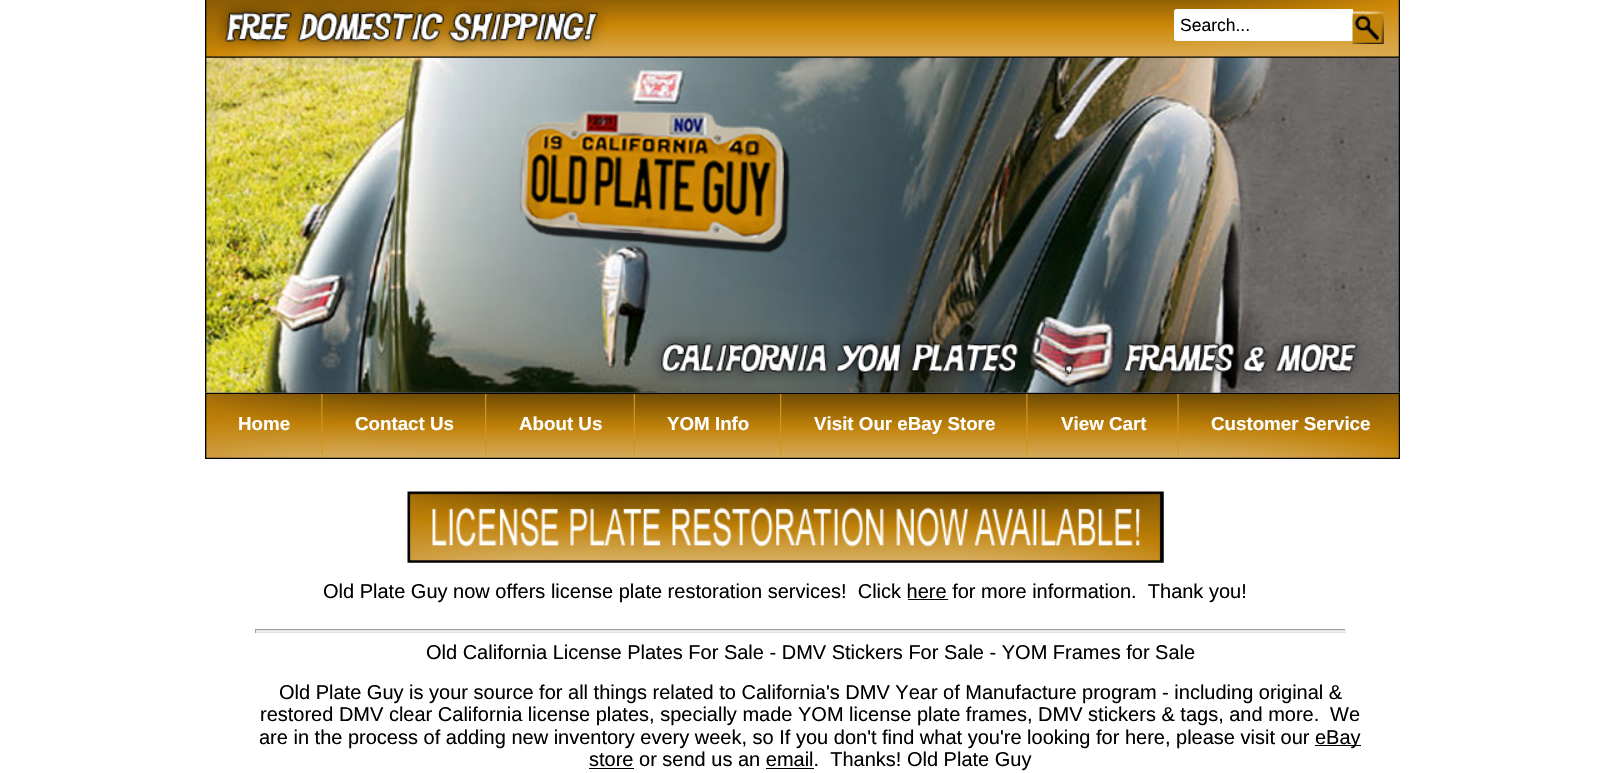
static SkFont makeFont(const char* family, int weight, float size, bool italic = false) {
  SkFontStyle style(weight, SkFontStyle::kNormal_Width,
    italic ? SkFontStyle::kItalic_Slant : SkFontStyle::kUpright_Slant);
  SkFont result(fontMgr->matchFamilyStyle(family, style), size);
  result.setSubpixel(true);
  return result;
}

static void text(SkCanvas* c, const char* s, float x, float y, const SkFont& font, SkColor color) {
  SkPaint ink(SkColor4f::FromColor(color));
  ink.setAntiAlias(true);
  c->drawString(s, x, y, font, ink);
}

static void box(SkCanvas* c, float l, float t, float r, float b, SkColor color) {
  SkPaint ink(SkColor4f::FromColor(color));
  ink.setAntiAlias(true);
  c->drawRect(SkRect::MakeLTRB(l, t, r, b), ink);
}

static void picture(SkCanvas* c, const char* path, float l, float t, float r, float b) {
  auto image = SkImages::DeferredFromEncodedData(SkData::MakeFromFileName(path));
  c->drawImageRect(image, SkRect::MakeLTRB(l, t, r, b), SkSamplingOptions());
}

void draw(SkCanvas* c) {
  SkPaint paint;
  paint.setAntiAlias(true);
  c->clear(0xffffffff);
  picture(c, "img_01.png", 205, 0, 1400, 393);
  paint.setColor(0xffffffff);
  c->drawPath(SkPathBuilder().moveTo(1176.5f, 9).lineTo(1353, 9).lineTo(1353, 41).lineTo(1176.5f, 41).cubicTo(1175, 41, 1174, 40, 1174, 38.5f).lineTo(1174, 11.5f).cubicTo(1174, 10, 1175, 9, 1176.5f, 9).close().detach(), paint);
  SkFont face1 = makeFont("Liberation Sans", 400, 17.5f);
  text(c, "Search...", 1180, 31, face1, 0xff000000);
  picture(c, "img_02.png", 1352, 11, 1384, 44);
  picture(c, "img_03.png", 205, 392, 1400, 394);
  picture(c, "img_04.png", 205, 394, 1400, 459);
  picture(c, "img_05.png", 321, 394, 323, 454);
  SkFont face2 = makeFont("Liberation Sans", 700, 18.75f);
  text(c, "Home", 238, 430, face2, 0xffffffff);
  picture(c, "img_06.png", 485, 394, 487, 454);
  text(c, "Contact Us", 355, 430, face2, 0xffffffff);
  picture(c, "img_07.png", 633, 394, 635, 454);
  text(c, "About Us", 519, 430, face2, 0xffffffff);
  picture(c, "img_06.png", 780, 394, 782, 454);
  text(c, "YOM Info", 667, 430, face2, 0xffffffff);
  picture(c, "img_08.png", 1026, 394, 1028, 454);
  text(c, "Visit Our eBay Store", 814, 430, face2, 0xffffffff);
  picture(c, "img_09.png", 1177, 394, 1179, 454);
  text(c, "View Cart", 1061, 430, face2, 0xffffffff);
  text(c, "Customer Service", 1211, 430, face2, 0xffffffff);
  picture(c, "img_10.png", 407, 491, 1164, 563);
  SkFont face3 = makeFont("Liberation Sans", 400, 20);
  text(c, "Old Plate Guy now offers license plate restoration services!  Click here for more information.  Thank you!", 323, 598, face3, 0xff000000);
  box(c, 908, 599, 948, 600, 0xff000000);
  box(c, 255, 630, 1346, 633, 0xffe2e2e2);
  box(c, 255, 629, 1346, 630, 0xff9f9f9f);
  box(c, 1345, 629, 1346, 633, 0xffeeeeee);
  box(c, 255, 631, 1346, 632, 0xffeeeeee);
  box(c, 255, 629, 256, 633, 0xff9f9f9f);
  text(c, "Old California License Plates For Sale - DMV Stickers For Sale - YOM Frames for Sale", 426, 659, face3, 0xff000000);
  text(c, "Old Plate Guy is your source for all things related to California's DMV Year of Manufacture program - including original &", 279, 699, face3, 0xff000000);
  text(c, "restored DMV clear California license plates, specially made YOM license plate frames, DMV stickers & tags, and more.", 260, 721, face3, 0xff000000);
  text(c, "We", 1330, 721, face3, 0xff000000);
  text(c, "are in the process of adding new inventory every week, so If you don't find what you're looking for here, please visit our", 259, 744, face3, 0xff000000);
  box(c, 1315, 745, 1361, 746, 0xff000000);
  text(c, "eBay", 1315, 744, face3, 0xff000000);
  box(c, 589, 768, 634, 769, 0xff000000);
  text(c, "store or send us an email.  Thanks! Old Plate Guy", 589, 766, face3, 0xff000000);
  box(c, 766, 768, 814, 769, 0xff000000);
}
